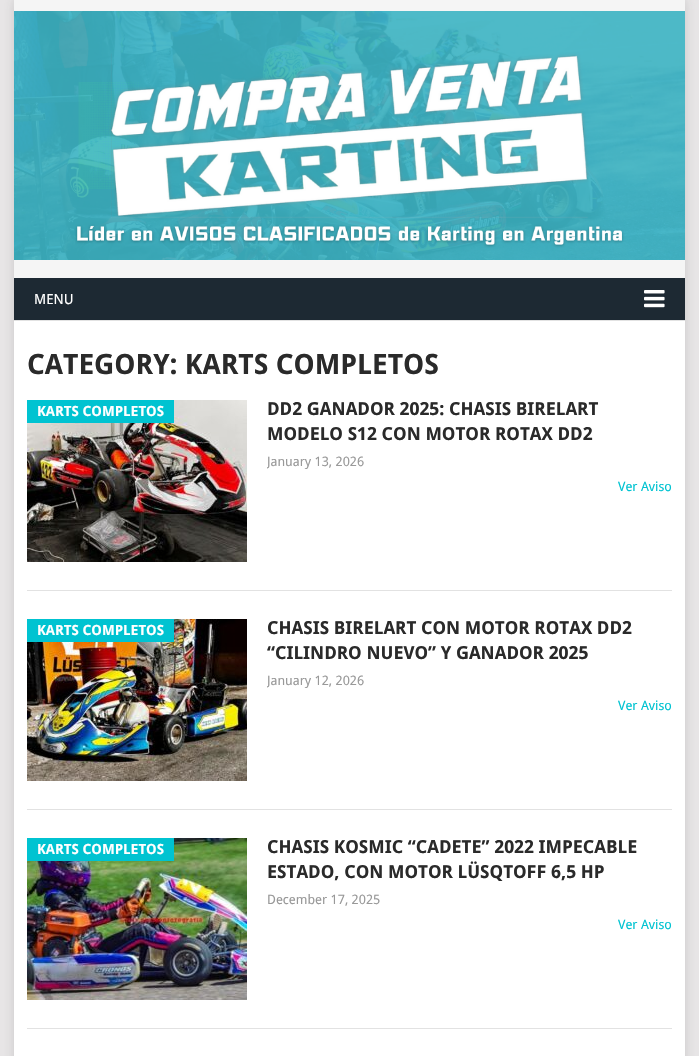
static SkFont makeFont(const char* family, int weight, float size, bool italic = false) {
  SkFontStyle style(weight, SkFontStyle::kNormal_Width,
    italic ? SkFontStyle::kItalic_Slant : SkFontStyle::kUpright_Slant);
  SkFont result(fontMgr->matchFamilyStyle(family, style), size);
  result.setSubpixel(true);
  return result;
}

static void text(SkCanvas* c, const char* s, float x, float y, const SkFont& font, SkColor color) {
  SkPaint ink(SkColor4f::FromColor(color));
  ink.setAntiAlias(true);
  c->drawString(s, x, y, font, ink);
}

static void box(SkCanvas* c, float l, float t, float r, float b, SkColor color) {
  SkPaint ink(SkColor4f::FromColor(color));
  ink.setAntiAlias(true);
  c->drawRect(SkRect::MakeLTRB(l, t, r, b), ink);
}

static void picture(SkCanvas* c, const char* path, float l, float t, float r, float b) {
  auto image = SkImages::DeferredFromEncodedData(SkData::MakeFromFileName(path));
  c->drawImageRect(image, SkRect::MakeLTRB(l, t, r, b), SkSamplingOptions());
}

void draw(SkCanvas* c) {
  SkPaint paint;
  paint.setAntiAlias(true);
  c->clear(0xffe7e5e6);
  paint.setColor(0x2b323232);
  paint.setMaskFilter(SkMaskFilter::MakeBlur(kNormal_SkBlurStyle, 5));
  c->drawRect(SkRect::MakeLTRB(14, 0, 685, 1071), paint);
  paint.setMaskFilter(nullptr);
  box(c, 14, 321, 685, 1056, 0xffffffff);
  box(c, 14, 0, 685, 278, 0xfff5f5f5);
  picture(c, "img_01.png", 14, 11, 685, 260);
  box(c, 14, 278, 685, 320, 0xff1d2933);
  SkFont face1 = makeFont("Droid Sans", 400, 14);
  text(c, "MENU", 34, 304, face1, 0xffffffff);
  picture(c, "img_02.png", 644, 290, 665, 308);
  box(c, 14, 320, 685, 321, 0xffe2e2e2);
  SkFont face2 = makeFont("Droid Sans", 700, 28);
  text(c, "CATEGORY: KARTS COMPLETOS", 27, 374, face2, 0xff2a2a2a);
  box(c, 27, 590, 672, 591, 0xffe2e2e2);
  picture(c, "img_03.png", 27, 400, 247, 562);
  box(c, 27, 400, 174, 423, 0xff00c3d1);
  SkFont face3 = makeFont("Droid Sans", 700, 14);
  text(c, "KARTS COMPLETOS", 37, 416, face3, 0xffffffff);
  SkFont face4 = makeFont("Droid Sans", 700, 18);
  text(c, "DD2 GANADOR 2025: CHASIS BIRELART", 267, 415, face4, 0xff2a2a2a);
  text(c, "MODELO S12 CON MOTOR ROTAX DD2", 267, 440, face4, 0xff2a2a2a);
  c->save();
  c->clipRect(SkRect::MakeLTRB(267, 396, 672, 473));
  SkFont face5 = makeFont("Droid Sans", 400, 13);
  text(c, "January 13, 2026", 267, 466, face5, 0xff999999);
  c->restore();
  text(c, "Ver Aviso", 618, 491, face5, 0xff00c3d1);
  box(c, 27, 809, 672, 810, 0xffe2e2e2);
  picture(c, "img_04.png", 27, 619, 247, 781);
  box(c, 27, 619, 174, 642, 0xff00c3d1);
  text(c, "KARTS COMPLETOS", 37, 635, face3, 0xffffffff);
  text(c, "CHASIS BIRELART CON MOTOR ROTAX DD2", 267, 634, face4, 0xff2a2a2a);
  text(c, "“CILINDRO NUEVO” Y GANADOR 2025", 267, 659, face4, 0xff2a2a2a);
  c->save();
  c->clipRect(SkRect::MakeLTRB(267, 615, 672, 692));
  text(c, "January 12, 2026", 267, 685, face5, 0xff999999);
  c->restore();
  text(c, "Ver Aviso", 618, 710, face5, 0xff00c3d1);
  box(c, 27, 1028, 672, 1029, 0xffe2e2e2);
  picture(c, "img_05.png", 27, 838, 247, 1000);
  box(c, 27, 838, 174, 861, 0xff00c3d1);
  text(c, "KARTS COMPLETOS", 37, 854, face3, 0xffffffff);
  text(c, "CHASIS KOSMIC “CADETE” 2022 IMPECABLE", 267, 853, face4, 0xff2a2a2a);
  text(c, "ESTADO, CON MOTOR LÜSQTOFF 6,5 HP", 267, 878, face4, 0xff2a2a2a);
  text(c, "December 17, 2025", 267, 904, face5, 0xff999999);
  text(c, "Ver Aviso", 618, 929, face5, 0xff00c3d1);
}
